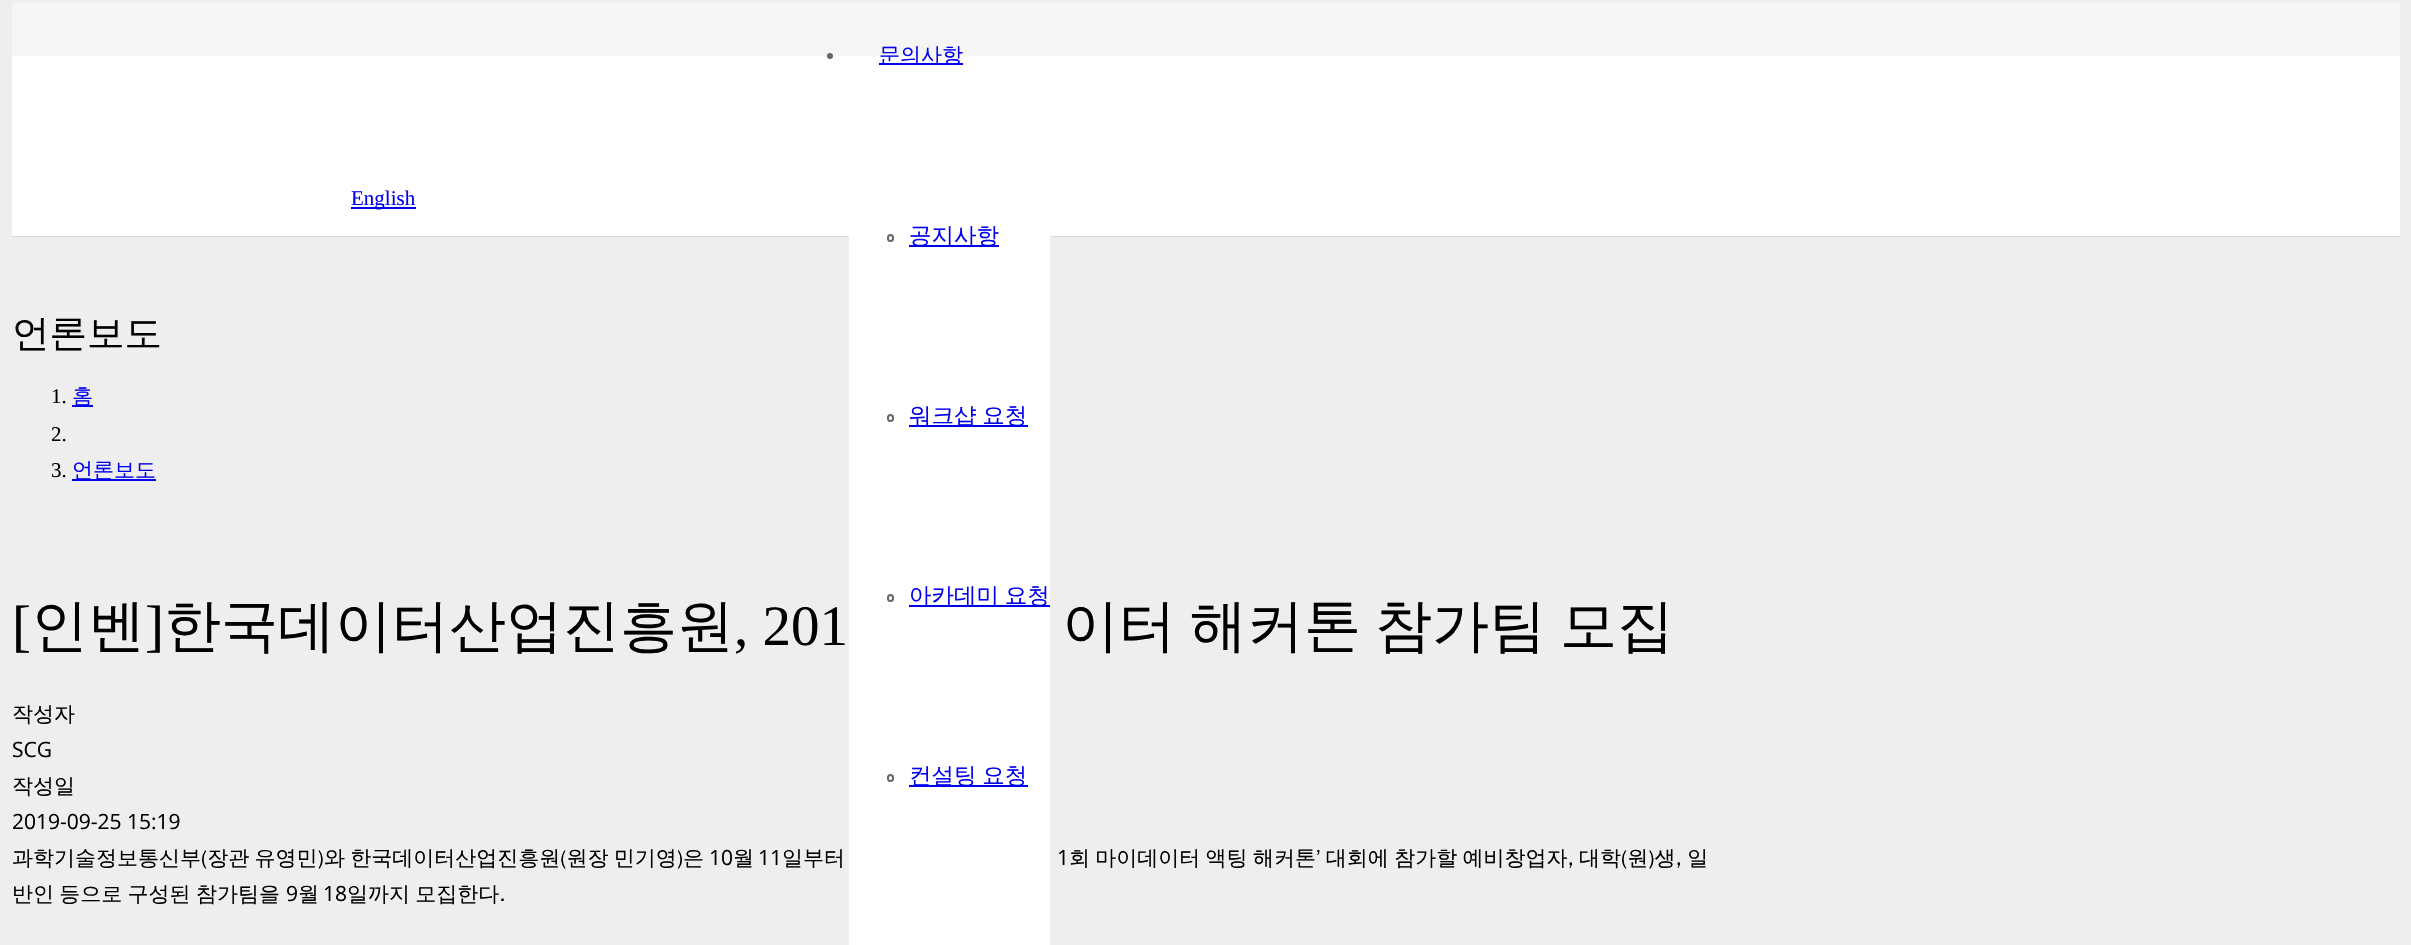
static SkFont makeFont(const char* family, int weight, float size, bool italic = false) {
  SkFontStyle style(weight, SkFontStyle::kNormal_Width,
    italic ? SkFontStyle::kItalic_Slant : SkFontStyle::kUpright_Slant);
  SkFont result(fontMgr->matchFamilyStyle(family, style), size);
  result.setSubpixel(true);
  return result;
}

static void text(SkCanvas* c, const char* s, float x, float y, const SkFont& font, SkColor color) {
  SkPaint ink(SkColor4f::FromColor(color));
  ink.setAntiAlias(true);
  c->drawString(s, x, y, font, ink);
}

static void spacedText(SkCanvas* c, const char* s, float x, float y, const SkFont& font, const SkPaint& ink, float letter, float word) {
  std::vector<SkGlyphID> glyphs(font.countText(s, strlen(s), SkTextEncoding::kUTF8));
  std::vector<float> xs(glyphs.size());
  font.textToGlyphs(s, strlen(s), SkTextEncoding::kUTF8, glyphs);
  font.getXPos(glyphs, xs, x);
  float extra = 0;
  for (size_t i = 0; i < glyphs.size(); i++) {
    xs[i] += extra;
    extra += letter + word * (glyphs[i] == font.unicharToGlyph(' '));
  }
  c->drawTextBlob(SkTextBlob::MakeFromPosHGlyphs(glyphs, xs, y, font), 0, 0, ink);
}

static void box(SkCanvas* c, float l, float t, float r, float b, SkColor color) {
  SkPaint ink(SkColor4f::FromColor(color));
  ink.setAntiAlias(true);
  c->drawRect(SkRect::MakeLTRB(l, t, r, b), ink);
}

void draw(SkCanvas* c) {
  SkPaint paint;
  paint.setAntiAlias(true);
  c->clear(0xffeeeeee);
  box(c, 12, 2, 2400, 56, 0xfff5f5f5);
  box(c, 12, 236, 2400, 237, 0xffdbdbdb);
  box(c, 12, 56, 2400, 236, 0xffffffff);
  box(c, 351, 207, 416, 209, 0xff0000ee);
  SkFont face1 = makeFont("Liberation Serif", 400, 21);
  text(c, "English", 351, 205, face1, 0xff0000ee);
  paint.setColor(0xff666666);
  c->drawCircle(830, 56, 3, paint);
  box(c, 879, 63, 963, 65, 0xff0000ee);
  SkFont face2 = makeFont("WenQuanYi Zen Hei", 500, 21);
  text(c, "문의사항", 879, 62, face2, 0xff0000ee);
  box(c, 849, 236, 1050, 945, 0xffffffff);
  paint.setStyle(SkPaint::kStroke_Style);
  paint.setStrokeWidth(2);
  c->drawRoundRect(SkRect::MakeLTRB(888, 235, 893, 241), 2.5f, 2.5f, paint);
  box(c, 909, 245, 999, 247, 0xff0000ee);
  SkFont face3 = makeFont("WenQuanYi Zen Hei", 500, 22.5f);
  text(c, "공지사항", 909, 243, face3, 0xff0000ee);
  c->drawRoundRect(SkRect::MakeLTRB(888, 415, 893, 421), 2.5f, 2.5f, paint);
  box(c, 909, 425, 1028, 427, 0xff0000ee);
  paint.setStyle(SkPaint::kFill_Style);
  paint.setColor(0xff0000ee);
  spacedText(c, "워크샵 요청", 909, 423, face3, paint, 0, -1);
  paint.setStyle(SkPaint::kStroke_Style);
  paint.setColor(0xff666666);
  c->drawRoundRect(SkRect::MakeLTRB(888, 595, 893, 601), 2.5f, 2.5f, paint);
  box(c, 909, 605, 1050, 607, 0xff0000ee);
  paint.setStyle(SkPaint::kFill_Style);
  paint.setColor(0xff0000ee);
  spacedText(c, "아카데미 요청", 909, 603, face3, paint, 0, -1);
  paint.setStyle(SkPaint::kStroke_Style);
  paint.setColor(0xff666666);
  c->drawRoundRect(SkRect::MakeLTRB(888, 775, 893, 781), 2.5f, 2.5f, paint);
  box(c, 909, 785, 1028, 787, 0xff0000ee);
  paint.setStyle(SkPaint::kFill_Style);
  paint.setColor(0xff0000ee);
  spacedText(c, "컨설팅 요청", 909, 783, face3, paint, 0, -1);
  SkFont face4 = makeFont("WenQuanYi Zen Hei", 500, 37.5f);
  text(c, "언론보도", 12, 346, face4, 0xff000000);
  text(c, "1.", 51, 403, face1, 0xff000000);
  box(c, 72, 405, 93, 407, 0xff0000ee);
  text(c, "홈", 72, 403, face2, 0xff0000ee);
  text(c, "2.", 51, 441, face1, 0xff000000);
  text(c, "3.", 51, 477, face1, 0xff000000);
  box(c, 72, 479, 156, 481, 0xff0000ee);
  text(c, "언론보도", 72, 477, face2, 0xff0000ee);
  SkFont face5 = makeFont("Liberation Serif", 400, 57);
  text(c, "[", 12, 645, face5, 0xff000000);
  SkFont face6 = makeFont("WenQuanYi Zen Hei", 500, 57);
  text(c, "인벤", 31, 645, face6, 0xff000000);
  text(c, "]", 145, 645, face5, 0xff000000);
  text(c, "한국데이터산업진흥원", 164, 645, face6, 0xff000000);
  text(c, ", 201", 734, 645, face5, 0xff000000);
  text(c, "이터", 1062, 645, face6, 0xff000000);
  text(c, "해커톤", 1190, 645, face6, 0xff000000);
  text(c, "참가팀", 1375, 645, face6, 0xff000000);
  text(c, "모집", 1560, 645, face6, 0xff000000);
  text(c, "작성자", 12, 721, face2, 0xff000000);
  SkFont face7 = makeFont("Open Sans", 400, 21);
  text(c, "SCG", 12, 757, face7, 0xff000000);
  text(c, "작성일", 12, 793, face2, 0xff000000);
  text(c, "2019-09-25 15:19", 12, 829, face7, 0xff000000);
  paint.setColor(0xff000000);
  spacedText(c, "과학기술정보통신부(장관 유영민)와 한국데이터산업진흥원(원장 민기영)은", 12, 865, face2, paint, 0, -1);
  text(c, "10", 709, 865, face7, 0xff000000);
  text(c, "월", 733, 865, face2, 0xff000000);
  text(c, "11", 758, 865, face7, 0xff000000);
  text(c, "일부터", 782, 865, face2, 0xff000000);
  text(c, "1", 1057, 865, face7, 0xff000000);
  spacedText(c, "회 마이데이터 액팅 해커톤’ 대회에 참가할 예비창업자, 대학(원)생, 일", 1069, 865, face2, paint, 0, -1);
  spacedText(c, "반인 등으로 구성된 참가팀을", 12, 901, face2, paint, 0, -1);
  text(c, "9", 286, 901, face7, 0xff000000);
  text(c, "월", 298, 901, face2, 0xff000000);
  text(c, "18", 323, 901, face7, 0xff000000);
  spacedText(c, "일까지 모집한다.", 347, 901, face2, paint, 0, -1);
}
